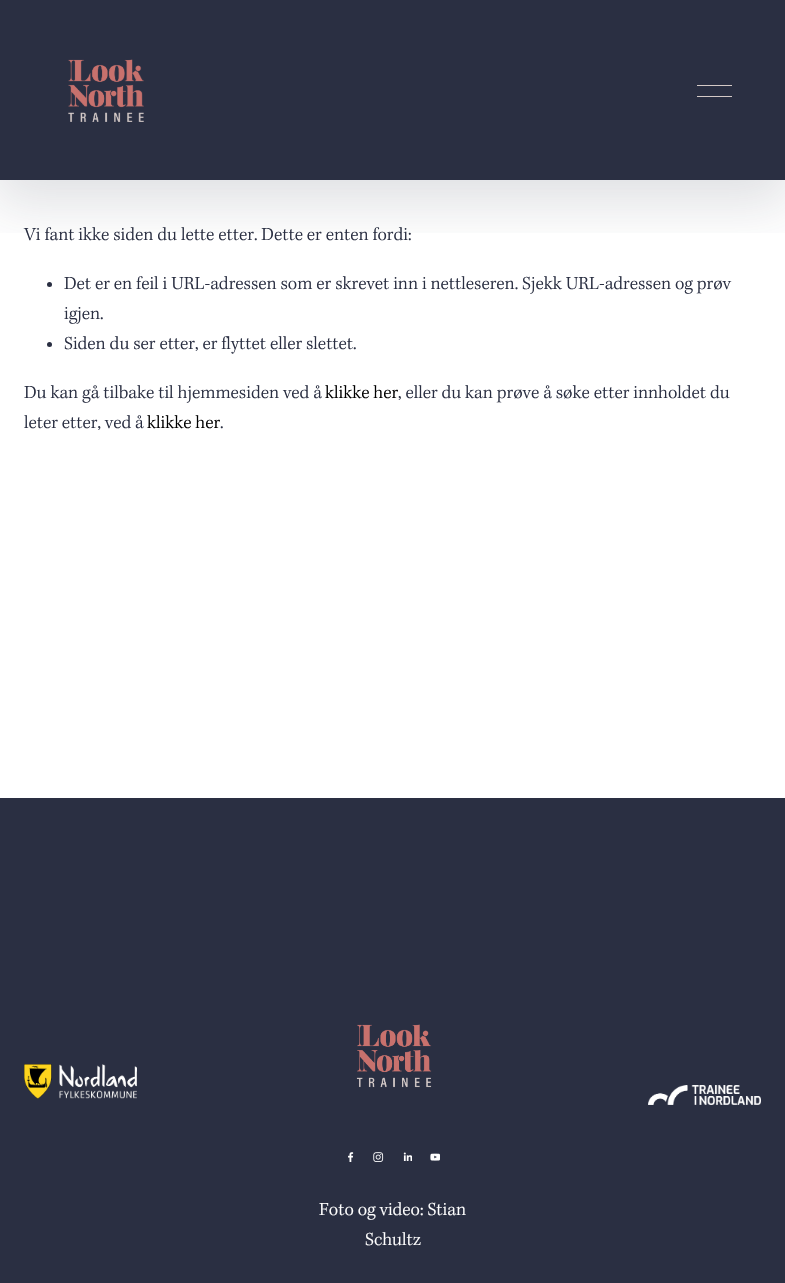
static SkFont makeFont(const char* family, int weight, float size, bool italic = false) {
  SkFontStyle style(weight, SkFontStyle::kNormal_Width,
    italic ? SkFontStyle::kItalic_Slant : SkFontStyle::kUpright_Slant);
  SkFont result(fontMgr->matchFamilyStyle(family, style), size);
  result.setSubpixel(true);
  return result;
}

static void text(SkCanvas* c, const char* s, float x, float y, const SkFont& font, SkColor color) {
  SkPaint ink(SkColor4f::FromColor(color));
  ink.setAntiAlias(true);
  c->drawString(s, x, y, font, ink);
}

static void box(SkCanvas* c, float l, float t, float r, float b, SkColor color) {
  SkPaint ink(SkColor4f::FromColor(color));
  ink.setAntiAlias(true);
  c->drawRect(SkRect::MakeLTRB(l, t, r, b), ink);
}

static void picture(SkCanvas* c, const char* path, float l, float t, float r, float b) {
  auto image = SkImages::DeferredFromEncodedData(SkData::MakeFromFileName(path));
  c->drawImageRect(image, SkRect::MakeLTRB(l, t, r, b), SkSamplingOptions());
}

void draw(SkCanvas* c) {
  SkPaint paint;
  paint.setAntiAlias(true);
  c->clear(0xffffffff);
  box(c, 0, 0, 785, 180, 0xff2a2f42);
  paint.setColor(0xff2a2f42);
  c->drawCircle(49.5f, 284.5f, 2.5f, paint);
  c->save();
  c->clipRect(SkRect::MakeLTRB(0, 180, 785, 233));
  paint.setColor(0x262a2f42);
  paint.setMaskFilter(SkMaskFilter::MakeBlur(kNormal_SkBlurStyle, 26.5f));
  c->drawRect(SkRect::MakeLTRB(-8, 8, 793, 204), paint);
  paint.setMaskFilter(nullptr);
  c->restore();
  picture(c, "img_01.png", 68, 59, 144, 122);
  box(c, 697, 85, 732, 86, 0xffd4cac7);
  box(c, 697, 96, 732, 97, 0xffd4cac7);
  SkFont face1 = makeFont("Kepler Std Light", 300, 18.85f);
  text(c, "Vi fant ikke siden du lette etter. Dette er enten fordi:", 24, 240, face1, 0xff2a2f42);
  text(c, "Det er en feil i URL-adressen som er skrevet inn i nettleseren. Sjekk URL-adressen og prøv", 64, 289, face1, 0xff2a2f42);
  text(c, "igjen.", 64, 319, face1, 0xff2a2f42);
  paint.setColor(0xff2a2f42);
  c->drawCircle(49.5f, 344.5f, 2.5f, paint);
  text(c, "Siden du ser etter, er flyttet eller slettet.", 64, 349, face1, 0xff2a2f42);
  text(c, "Du kan gå tilbake til hjemmesiden ved å", 24, 398, face1, 0xff2a2f42);
  text(c, "klikke her", 325, 398, face1, 0xff000000);
  text(c, ", eller du kan prøve å søke etter innholdet du", 398, 398, face1, 0xff2a2f42);
  text(c, "leter etter, ved å", 24, 428, face1, 0xff2a2f42);
  text(c, "klikke her", 147, 428, face1, 0xff000000);
  text(c, ".", 220, 428, face1, 0xff2a2f42);
  box(c, 0, 798, 785, 1283, 0xff2a2f42);
  picture(c, "img_02.png", 24, 1064, 137, 1099);
  picture(c, "img_03.png", 356, 1024, 432, 1088);
  picture(c, "img_04.png", 648, 1085, 761, 1105);
  picture(c, "img_05.png", 348, 1152, 354, 1162);
  picture(c, "img_06.png", 373, 1152, 384, 1162);
  picture(c, "img_07.png", 403, 1152, 412, 1161);
  picture(c, "img_08.png", 430, 1153, 440, 1161);
  text(c, "Foto og video: Stian", 319, 1215, face1, 0xffffffff);
  text(c, "Schultz", 365, 1245, face1, 0xffffffff);
}
